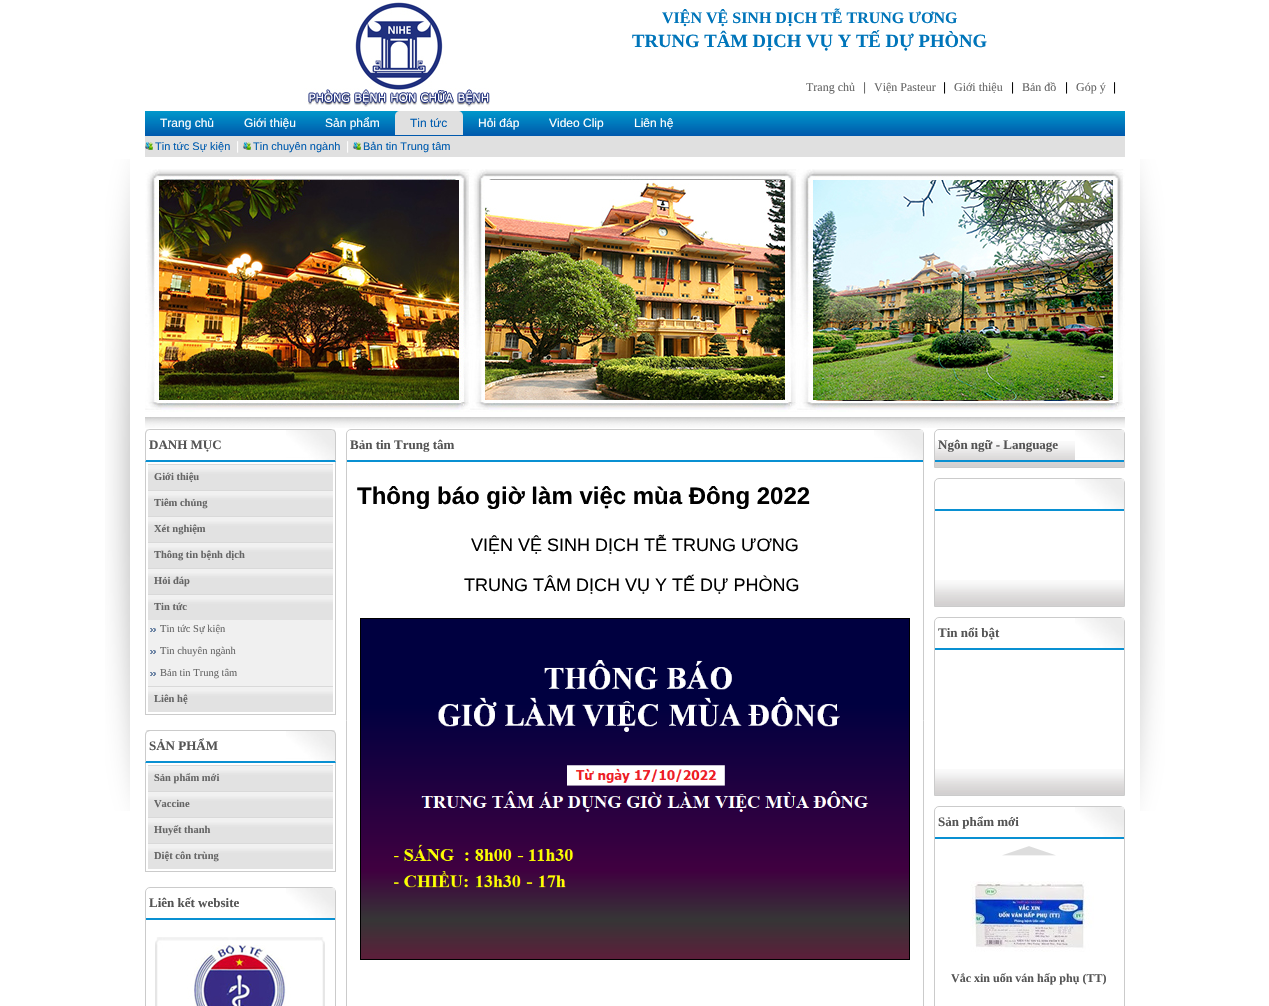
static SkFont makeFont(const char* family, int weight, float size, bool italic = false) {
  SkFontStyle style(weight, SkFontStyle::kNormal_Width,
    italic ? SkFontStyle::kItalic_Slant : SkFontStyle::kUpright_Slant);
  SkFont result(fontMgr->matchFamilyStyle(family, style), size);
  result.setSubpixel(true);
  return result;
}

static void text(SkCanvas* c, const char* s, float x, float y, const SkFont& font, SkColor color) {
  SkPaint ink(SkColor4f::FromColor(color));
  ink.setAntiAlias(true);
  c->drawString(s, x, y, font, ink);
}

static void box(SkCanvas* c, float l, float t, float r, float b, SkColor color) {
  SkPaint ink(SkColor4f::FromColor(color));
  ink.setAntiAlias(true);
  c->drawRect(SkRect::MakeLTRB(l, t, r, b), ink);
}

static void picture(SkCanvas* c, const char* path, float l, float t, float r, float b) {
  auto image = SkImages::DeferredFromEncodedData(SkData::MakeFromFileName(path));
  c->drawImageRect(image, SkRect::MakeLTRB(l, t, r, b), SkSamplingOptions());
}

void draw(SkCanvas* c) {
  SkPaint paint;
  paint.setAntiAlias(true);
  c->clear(0xffffffff);
  picture(c, "img_01.png", 105, 159, 1165, 811);
  picture(c, "img_02.png", 304, 2, 490, 107);
  SkFont face1 = makeFont("Liberation Serif", 700, 16);
  text(c, "VIỆN VỆ SINH DỊCH TỄ TRUNG ƯƠNG", 662, 23, face1, 0xff0075ba);
  SkFont face2 = makeFont("Liberation Serif", 700, 18.7f);
  text(c, "TRUNG TÂM DỊCH VỤ Y TẾ DỰ PHÒNG", 632, 47, face2, 0xff0075ba);
  SkFont face3 = makeFont("Liberation Serif", 400, 12);
  text(c, "Trang chủ", 806, 91, face3, 0xff666666);
  SkFont face4 = makeFont("Liberation Sans", 400, 12);
  text(c, "|", 863, 91, face4, 0xff666666);
  text(c, "Viện Pasteur", 874, 91, face3, 0xff666666);
  text(c, "|", 943, 91, face4, 0xff000000);
  text(c, "Giới thiệu", 954, 91, face3, 0xff666666);
  text(c, "|", 1011, 91, face4, 0xff000000);
  text(c, "Bản đồ", 1022, 91, face3, 0xff666666);
  text(c, "|", 1065, 91, face4, 0xff000000);
  text(c, "Góp ý", 1076, 91, face3, 0xff666666);
  text(c, "|", 1113, 91, face4, 0xff000000);
  picture(c, "img_03.png", 145, 111, 1125, 136);
  text(c, "Trang chủ", 160, 127, face4, 0xffffffff);
  text(c, "Sản phẩm", 325, 127, face4, 0xffffffff);
  text(c, "Hỏi đáp", 478, 127, face4, 0xffffffff);
  paint.setColor(0xffe0e0e0);
  c->drawPath(SkPathBuilder().moveTo(400, 111).lineTo(458, 111).cubicTo(461, 111, 463, 113, 463, 116).lineTo(463, 135).lineTo(395, 135).lineTo(395, 116).cubicTo(395, 113, 397, 111, 400, 111).close().detach(), paint);
  text(c, "Tin tức", 410, 127, face4, 0xff005caf);
  box(c, 145, 136, 1125, 157, 0xffe0e0e0);
  picture(c, "img_04.png", 145, 142, 153, 150);
  SkFont face5 = makeFont("Liberation Sans", 400, 11);
  text(c, "Tin tức Sự kiện", 155, 150, face5, 0xff005caf);
  text(c, "|", 236, 150, face4, 0xffffffff);
  picture(c, "img_04.png", 243, 142, 251, 150);
  text(c, "Tin chuyên ngành", 253, 150, face5, 0xff005caf);
  text(c, "|", 346, 150, face4, 0xffffffff);
  picture(c, "img_04.png", 353, 142, 361, 150);
  text(c, "Bản tin Trung tâm", 363, 150, face5, 0xff005caf);
  text(c, "Giới thiệu", 244, 127, face4, 0xffffffff);
  text(c, "Video Clip", 549, 127, face4, 0xffffffff);
  text(c, "Liên hệ", 634, 127, face4, 0xffffffff);
  picture(c, "img_05.png", 145, 169, 1125, 412);
  picture(c, "img_06.png", 145, 417, 1125, 428);
  picture(c, "img_07.png", 286, 430, 335, 460);
  paint.setColor(0xffcbcbcb);
  c->drawPath(SkPathBuilder().moveTo(150, 429).cubicTo(148, 429, 147, 430, 146, 430).lineTo(147, 431).cubicTo(148, 430, 149, 430, 150, 430).lineTo(331, 430).cubicTo(332, 430, 333, 430, 334, 431).lineTo(335, 430).cubicTo(334, 430, 332, 429, 331, 429).close().detach(), paint);
  c->drawPath(SkPathBuilder().moveTo(336, 462).lineTo(336, 434).cubicTo(336, 432.5f, 335.5f, 431, 334.5f, 430.5f).lineTo(334, 431).cubicTo(334.5f, 432, 335, 433, 335, 434).lineTo(335, 460).close().detach(), paint);
  paint.setColor(0xff0990d2);
  c->drawPath(SkPathBuilder().moveTo(336, 462).lineTo(335, 460).lineTo(146, 460).lineTo(145, 462).close().detach(), paint);
  paint.setColor(0xffcbcbcb);
  c->drawPath(SkPathBuilder().moveTo(145, 462).lineTo(146, 460).lineTo(146, 434).cubicTo(146, 433, 146.5f, 432, 147, 431).lineTo(146.5f, 430.5f).cubicTo(145.5f, 431, 145, 432.5f, 145, 434).close().detach(), paint);
  SkFont face6 = makeFont("Liberation Serif", 700, 13);
  text(c, "DANH MỤC", 149, 449, face6, 0xff555555);
  box(c, 335, 462, 336, 715, 0xffcbcbcb);
  box(c, 145, 714, 336, 715, 0xffcbcbcb);
  box(c, 145, 462, 146, 715, 0xffcbcbcb);
  picture(c, "img_08.png", 148, 464, 333, 490);
  SkFont face7 = makeFont("Liberation Serif", 700, 10.5f);
  text(c, "Giới thiệu", 154, 480, face7, 0xff666666);
  picture(c, "img_08.png", 148, 490, 333, 516);
  text(c, "Tiêm chủng", 154, 506, face7, 0xff666666);
  picture(c, "img_08.png", 148, 516, 333, 542);
  text(c, "Xét nghiệm", 154, 532, face7, 0xff666666);
  picture(c, "img_08.png", 148, 542, 333, 568);
  text(c, "Thông tin bệnh dịch", 154, 558, face7, 0xff666666);
  picture(c, "img_08.png", 148, 568, 333, 594);
  text(c, "Hỏi đáp", 154, 584, face7, 0xff666666);
  picture(c, "img_08.png", 148, 594, 333, 620);
  text(c, "Tin tức", 154, 610, face7, 0xff666666);
  box(c, 148, 620, 333, 686, 0xfff0f0f0);
  picture(c, "img_09.png", 150, 628, 156, 632);
  SkFont face8 = makeFont("Liberation Serif", 400, 10.5f);
  text(c, "Tin tức Sự kiện", 160, 632, face8, 0xff666666);
  picture(c, "img_09.png", 150, 650, 156, 654);
  text(c, "Tin chuyên ngành", 160, 654, face8, 0xff666666);
  picture(c, "img_09.png", 150, 672, 156, 676);
  text(c, "Bản tin Trung tâm", 160, 676, face8, 0xff666666);
  picture(c, "img_08.png", 148, 686, 333, 712);
  text(c, "Liên hệ", 154, 702, face7, 0xff666666);
  picture(c, "img_07.png", 286, 731, 335, 761);
  c->drawPath(SkPathBuilder().moveTo(150, 730).cubicTo(148, 730, 147, 730, 146, 731).lineTo(147, 732).cubicTo(148, 732, 149, 731, 150, 731).lineTo(331, 731).cubicTo(332, 731, 333, 732, 334, 732).lineTo(335, 731).cubicTo(334, 730, 332, 730, 331, 730).close().detach(), paint);
  c->drawPath(SkPathBuilder().moveTo(336, 763).lineTo(336, 735).cubicTo(336, 733.5f, 335.5f, 732, 334.5f, 731.5f).lineTo(334, 732).cubicTo(334.5f, 733, 335, 734, 335, 735).lineTo(335, 761).close().detach(), paint);
  paint.setColor(0xff0990d2);
  c->drawPath(SkPathBuilder().moveTo(336, 763).lineTo(335, 761).lineTo(146, 761).lineTo(145, 763).close().detach(), paint);
  paint.setColor(0xffcbcbcb);
  c->drawPath(SkPathBuilder().moveTo(145, 763).lineTo(146, 761).lineTo(146, 735).cubicTo(146, 734, 146.5f, 733, 147, 732).lineTo(146.5f, 731.5f).cubicTo(145.5f, 732, 145, 733.5f, 145, 735).close().detach(), paint);
  text(c, "SẢN PHẨM", 149, 750, face6, 0xff555555);
  box(c, 335, 763, 336, 872, 0xffcbcbcb);
  box(c, 145, 871, 336, 872, 0xffcbcbcb);
  box(c, 145, 763, 146, 872, 0xffcbcbcb);
  picture(c, "img_08.png", 148, 765, 333, 791);
  text(c, "Sản phẩm mới", 154, 781, face7, 0xff666666);
  picture(c, "img_08.png", 148, 791, 333, 817);
  text(c, "Vaccine", 154, 807, face7, 0xff666666);
  picture(c, "img_08.png", 148, 817, 333, 843);
  text(c, "Huyết thanh", 154, 833, face7, 0xff666666);
  picture(c, "img_08.png", 148, 843, 333, 869);
  text(c, "Diệt côn trùng", 154, 859, face7, 0xff666666);
  paint.setStyle(SkPaint::kStroke_Style);
  paint.setStrokeWidth(1);
  c->drawPath(SkPathBuilder().moveTo(150, 887.5f).lineTo(331, 887.5f).cubicTo(333.5f, 887.5f, 335.5f, 889.5f, 335.5f, 892).lineTo(335.5f, 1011.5f).lineTo(145.5f, 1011.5f).lineTo(145.5f, 892).cubicTo(145.5f, 889.5f, 147.5f, 887.5f, 150, 887.5f).close().detach(), paint);
  picture(c, "img_10.png", 286, 888, 335, 918);
  box(c, 146, 918, 335, 920, 0xff0990d2);
  text(c, "Liên kết website", 149, 907, face6, 0xff555555);
  picture(c, "img_11.png", 155, 937, 325, 1006);
  c->drawPath(SkPathBuilder().moveTo(351, 429.5f).lineTo(919, 429.5f).cubicTo(921.5f, 429.5f, 923.5f, 431.5f, 923.5f, 434).lineTo(923.5f, 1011.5f).lineTo(346.5f, 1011.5f).lineTo(346.5f, 434).cubicTo(346.5f, 431.5f, 348.5f, 429.5f, 351, 429.5f).close().detach(), paint);
  picture(c, "img_10.png", 874, 430, 923, 460);
  box(c, 347, 460, 923, 462, 0xff0990d2);
  text(c, "Bản tin Trung tâm", 350, 449, face6, 0xff555555);
  SkFont face9 = makeFont("Liberation Sans", 700, 24);
  text(c, "Thông báo giờ làm việc mùa Đông 2022", 357, 504, face9, 0xff000000);
  SkFont face10 = makeFont("Liberation Sans", 400, 18);
  text(c, "VIỆN VỆ SINH DỊCH TỄ TRUNG ƯƠNG", 471, 551, face10, 0xff000000);
  text(c, "TRUNG TÂM DỊCH VỤ Y TẾ DỰ PHÒNG", 464, 591, face10, 0xff000000);
  paint.setColor(0xff000000);
  c->drawRect(SkRect::MakeLTRB(360.5f, 618.5f, 909.5f, 959.5f), paint);
  picture(c, "img_12.png", 361, 619, 909, 959);
  picture(c, "img_13.png", 935, 441, 1124, 467);
  paint.setColor(0xffcbcbcb);
  c->drawPath(SkPathBuilder().moveTo(939, 429.5f).lineTo(1120, 429.5f).cubicTo(1122.5f, 429.5f, 1124.5f, 431.5f, 1124.5f, 434).lineTo(1124.5f, 467.5f).lineTo(934.5f, 467.5f).lineTo(934.5f, 434).cubicTo(934.5f, 431.5f, 936.5f, 429.5f, 939, 429.5f).close().detach(), paint);
  picture(c, "img_10.png", 1075, 430, 1124, 460);
  box(c, 935, 460, 1124, 462, 0xff0990d2);
  text(c, "Ngôn ngữ - Language", 938, 449, face6, 0xff555555);
  picture(c, "img_13.png", 935, 580, 1124, 606);
  c->drawPath(SkPathBuilder().moveTo(939, 478.5f).lineTo(1120, 478.5f).cubicTo(1122.5f, 478.5f, 1124.5f, 480.5f, 1124.5f, 483).lineTo(1124.5f, 606.5f).lineTo(934.5f, 606.5f).lineTo(934.5f, 483).cubicTo(934.5f, 480.5f, 936.5f, 478.5f, 939, 478.5f).close().detach(), paint);
  picture(c, "img_10.png", 1075, 479, 1124, 509);
  box(c, 935, 509, 1124, 511, 0xff0990d2);
  picture(c, "img_13.png", 935, 769, 1124, 795);
  c->drawPath(SkPathBuilder().moveTo(939, 617.5f).lineTo(1120, 617.5f).cubicTo(1122.5f, 617.5f, 1124.5f, 619.5f, 1124.5f, 622).lineTo(1124.5f, 795.5f).lineTo(934.5f, 795.5f).lineTo(934.5f, 622).cubicTo(934.5f, 619.5f, 936.5f, 617.5f, 939, 617.5f).close().detach(), paint);
  picture(c, "img_10.png", 1075, 618, 1124, 648);
  box(c, 935, 648, 1124, 650, 0xff0990d2);
  text(c, "Tin nổi bật", 938, 637, face6, 0xff555555);
  c->drawPath(SkPathBuilder().moveTo(939, 806.5f).lineTo(1120, 806.5f).cubicTo(1122.5f, 806.5f, 1124.5f, 808.5f, 1124.5f, 811).lineTo(1124.5f, 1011.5f).lineTo(934.5f, 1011.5f).lineTo(934.5f, 811).cubicTo(934.5f, 808.5f, 936.5f, 806.5f, 939, 806.5f).close().detach(), paint);
  picture(c, "img_10.png", 1075, 807, 1124, 837);
  box(c, 935, 837, 1124, 839, 0xff0990d2);
  text(c, "Sản phẩm mới", 938, 826, face6, 0xff555555);
  picture(c, "img_14.png", 1002, 846, 1056, 856);
  picture(c, "img_15.png", 970, 881, 1094, 952);
  SkFont face11 = makeFont("Liberation Serif", 700, 12);
  text(c, "Vắc xin uốn ván hấp phụ (TT)", 951, 982, face11, 0xff555555);
}
